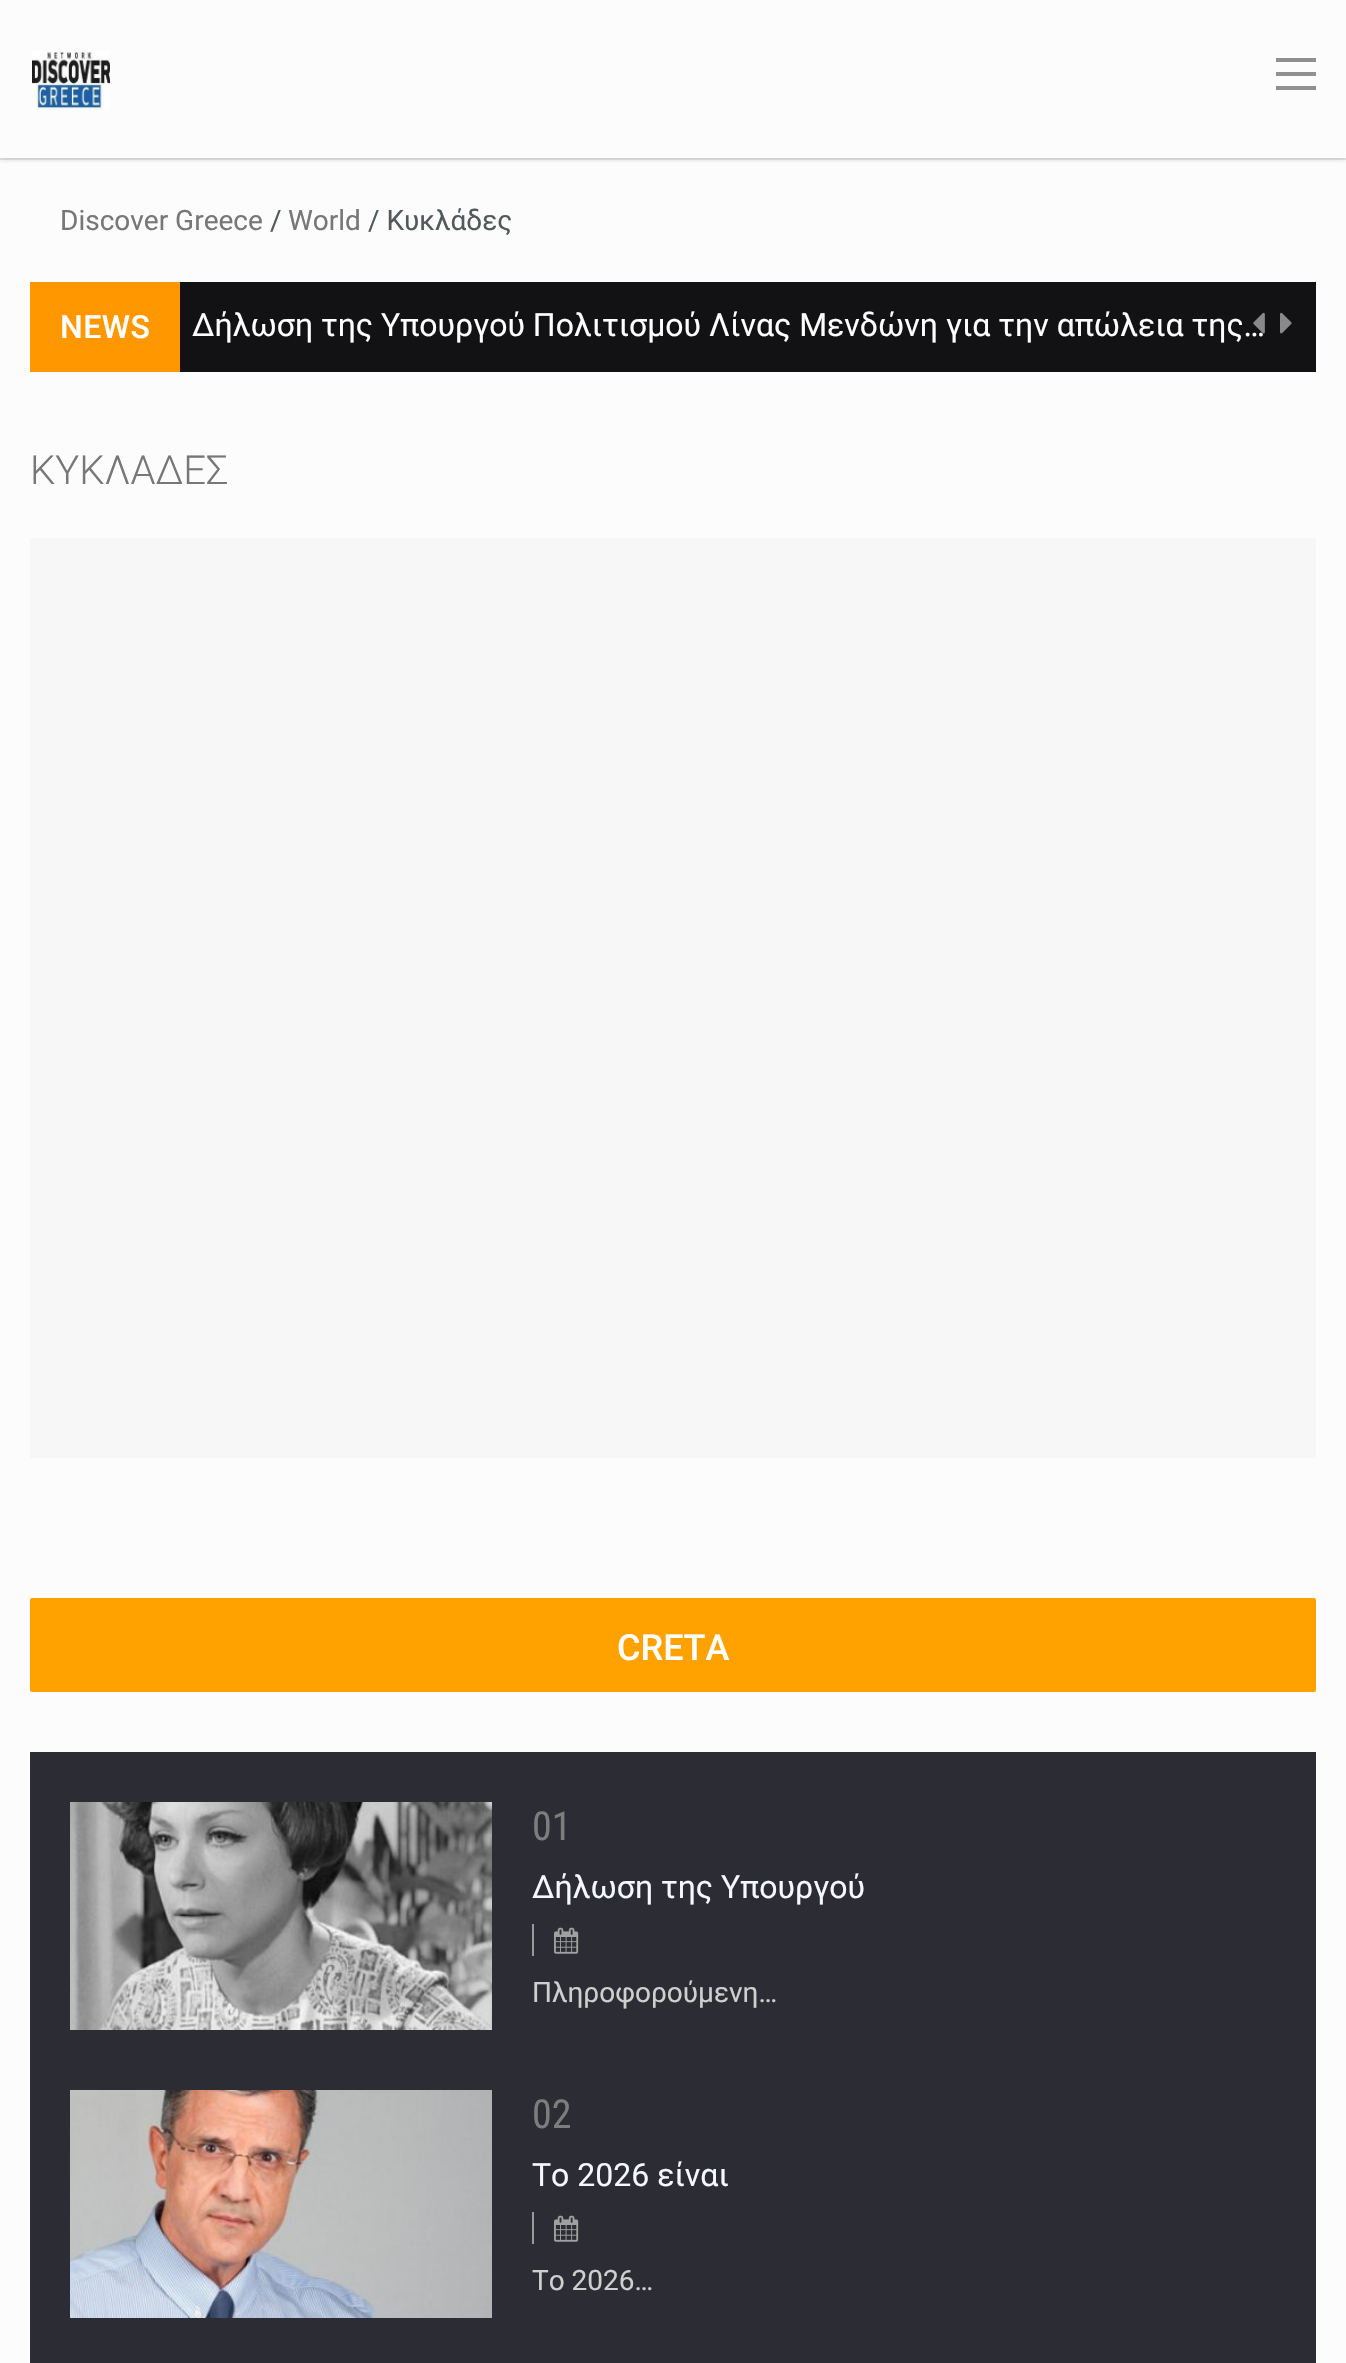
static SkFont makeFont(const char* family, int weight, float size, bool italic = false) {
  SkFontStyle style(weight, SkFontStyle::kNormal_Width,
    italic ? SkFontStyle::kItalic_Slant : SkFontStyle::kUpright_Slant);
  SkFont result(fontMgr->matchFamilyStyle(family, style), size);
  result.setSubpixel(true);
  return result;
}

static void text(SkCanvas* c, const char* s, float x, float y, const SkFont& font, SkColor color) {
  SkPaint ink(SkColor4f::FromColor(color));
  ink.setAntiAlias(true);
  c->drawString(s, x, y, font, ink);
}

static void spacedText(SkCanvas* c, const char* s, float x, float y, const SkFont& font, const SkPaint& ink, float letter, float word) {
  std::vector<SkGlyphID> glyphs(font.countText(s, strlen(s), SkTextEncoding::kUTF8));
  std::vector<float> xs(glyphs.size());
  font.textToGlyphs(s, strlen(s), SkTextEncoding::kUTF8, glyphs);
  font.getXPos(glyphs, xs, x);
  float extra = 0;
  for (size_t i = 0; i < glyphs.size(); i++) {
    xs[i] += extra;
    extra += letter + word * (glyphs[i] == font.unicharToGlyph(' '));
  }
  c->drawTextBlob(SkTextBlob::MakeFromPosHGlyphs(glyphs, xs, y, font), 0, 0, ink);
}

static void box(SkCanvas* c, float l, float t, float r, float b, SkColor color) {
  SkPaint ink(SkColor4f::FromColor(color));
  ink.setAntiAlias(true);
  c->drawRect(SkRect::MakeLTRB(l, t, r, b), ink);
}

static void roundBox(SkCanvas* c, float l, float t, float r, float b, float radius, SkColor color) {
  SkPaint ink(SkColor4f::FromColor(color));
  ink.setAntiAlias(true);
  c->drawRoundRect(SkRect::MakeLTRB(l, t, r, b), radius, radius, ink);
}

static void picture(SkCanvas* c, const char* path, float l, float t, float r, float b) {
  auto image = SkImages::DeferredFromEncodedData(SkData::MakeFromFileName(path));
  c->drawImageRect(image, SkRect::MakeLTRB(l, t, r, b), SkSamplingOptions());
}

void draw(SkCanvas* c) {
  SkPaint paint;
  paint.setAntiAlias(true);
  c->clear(0xfffcfcfc);
  box(c, 0, 158, 1346, 160, 0xffe3e3e3);
  c->save();
  c->clipRect(SkRect::MakeLTRB(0, 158, 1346, 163));
  paint.setColor(0x1c000000);
  paint.setMaskFilter(SkMaskFilter::MakeBlur(kNormal_SkBlurStyle, 3));
  c->drawRect(SkRect::MakeLTRB(0, 2, 1346, 160), paint);
  paint.setMaskFilter(nullptr);
  c->restore();
  picture(c, "img_01.png", 32, 51, 110, 111);
  box(c, 1276, 58, 1316, 62, 0xff909090);
  box(c, 1276, 72, 1316, 76, 0xff909090);
  box(c, 1276, 86, 1316, 90, 0xff909090);
  SkFont face1 = makeFont("Roboto", 400, 28);
  text(c, "Discover Greece", 60, 230, face1, 0xff777777);
  text(c, "/", 270, 230, face1, 0xff53585c);
  text(c, "World", 288, 230, face1, 0xff777777);
  text(c, "/ Κυκλάδες", 368, 230, face1, 0xff53585c);
  box(c, 30, 282, 180, 372, 0xffff9800);
  SkFont face2 = makeFont("Roboto", 500, 32);
  paint.setColor(0xffffffff);
  spacedText(c, "NEWS", 60, 338, face2, paint, 0.5f, 0);
  box(c, 180, 282, 1316, 372, 0xff121214);
  SkFont face3 = makeFont("Roboto", 400, 32);
  text(c, "Δήλωση της Υπουργού Πολιτισμού Λίνας Μενδώνη για την απώλεια της…", 192, 336, face3, 0xffffffff);
  picture(c, "img_02.png", 1253, 312, 1265, 334);
  picture(c, "img_03.png", 1280, 312, 1292, 334);
  SkFont face4 = makeFont("Roboto", 300, 40);
  text(c, "ΚΥΚΛΑΔΕΣ", 30, 484, face4, 0xff777777);
  box(c, 30, 538, 1316, 1458, 0xfff7f7f7);
  roundBox(c, 30, 1598, 1316, 1692, 2, 0xffffa200);
  SkFont face5 = makeFont("Roboto", 500, 36);
  text(c, "CRETA", 617, 1660, face5, 0xffffffff);
  box(c, 30, 1752, 1316, 2363, 0xff2c2c34);
  picture(c, "img_04.png", 70, 1802, 492, 2030);
  SkFont face6 = makeFont("Roboto Condensed", 400, 40);
  text(c, "01", 532, 1840, face6, 0xff7d7d7d);
  text(c, "Δήλωση της Υπουργού", 532, 1898, face3, 0xfff5f8fc);
  box(c, 532, 1924, 534, 1956, 0xff999999);
  picture(c, "img_05.png", 554, 1927, 579, 1954);
  text(c, "Πληροφορούμενη…", 532, 2002, face1, 0xffcfcfcf);
  picture(c, "img_06.png", 70, 2090, 492, 2318);
  text(c, "02", 532, 2128, face6, 0xff7d7d7d);
  text(c, "Το 2026 είναι", 532, 2186, face3, 0xfff5f8fc);
  box(c, 532, 2212, 534, 2244, 0xff999999);
  picture(c, "img_05.png", 554, 2215, 579, 2242);
  text(c, "Το 2026…", 532, 2290, face1, 0xffcfcfcf);
}
